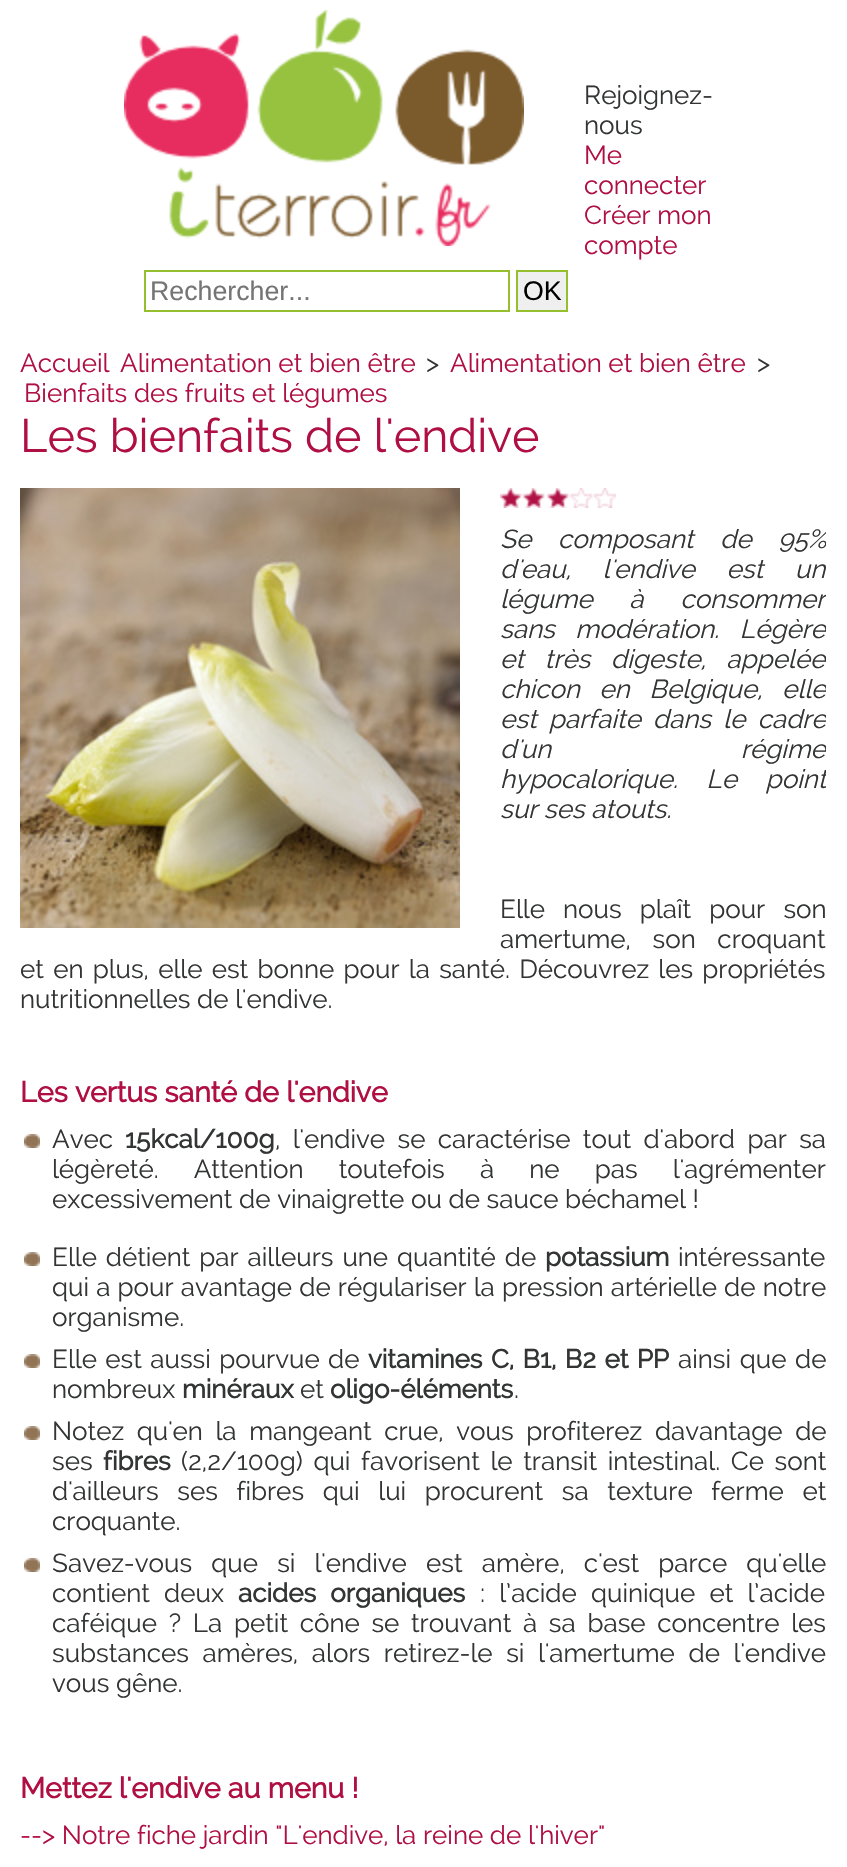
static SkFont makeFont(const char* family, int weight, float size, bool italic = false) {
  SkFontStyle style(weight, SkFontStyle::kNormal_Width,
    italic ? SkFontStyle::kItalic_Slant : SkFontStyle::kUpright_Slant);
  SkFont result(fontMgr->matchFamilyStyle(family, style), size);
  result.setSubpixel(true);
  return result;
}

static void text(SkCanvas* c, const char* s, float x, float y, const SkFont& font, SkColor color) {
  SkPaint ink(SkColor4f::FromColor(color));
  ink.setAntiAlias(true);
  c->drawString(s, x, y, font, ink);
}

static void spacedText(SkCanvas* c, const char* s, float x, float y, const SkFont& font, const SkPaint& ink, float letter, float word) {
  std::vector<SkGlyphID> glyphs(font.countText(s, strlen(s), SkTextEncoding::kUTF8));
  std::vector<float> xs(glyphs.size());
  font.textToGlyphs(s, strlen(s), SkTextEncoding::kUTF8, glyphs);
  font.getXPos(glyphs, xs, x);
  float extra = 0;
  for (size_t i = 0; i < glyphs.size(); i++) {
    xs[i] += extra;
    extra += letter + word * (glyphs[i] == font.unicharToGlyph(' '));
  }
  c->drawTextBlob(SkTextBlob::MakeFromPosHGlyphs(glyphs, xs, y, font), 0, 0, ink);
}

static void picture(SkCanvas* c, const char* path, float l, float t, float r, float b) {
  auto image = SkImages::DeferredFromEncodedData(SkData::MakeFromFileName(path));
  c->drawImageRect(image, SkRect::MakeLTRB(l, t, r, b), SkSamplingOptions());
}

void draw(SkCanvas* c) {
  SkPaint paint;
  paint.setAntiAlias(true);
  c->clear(0xffffffff);
  picture(c, "img_01.png", 0, 0, 847, 348);
  picture(c, "img_02.png", 124, 10, 524, 246);
  SkFont face1 = makeFont("Raleway", 400, 26);
  text(c, "Rejoignez-", 584, 104, face1, 0xff333534);
  text(c, "nous", 584, 134, face1, 0xff333534);
  text(c, "Me", 584, 164, face1, 0xffb00f43);
  text(c, "connecter", 584, 194, face1, 0xffb00f43);
  text(c, "Créer mon", 584, 224, face1, 0xffb00f43);
  text(c, "compte", 584, 254, face1, 0xffb00f43);
  paint.setStyle(SkPaint::kStroke_Style);
  paint.setStrokeWidth(2);
  paint.setColor(0xff95bf2d);
  c->drawRect(SkRect::MakeLTRB(145, 271, 509, 311), paint);
  SkFont face2 = makeFont("Liberation Sans", 400, 26.75f);
  text(c, "Rechercher...", 150, 300, face2, 0xff757575);
  paint.setStyle(SkPaint::kFill_Style);
  paint.setColor(0xffefefef);
  c->drawRect(SkRect::MakeLTRB(517, 271, 567, 311), paint);
  paint.setStyle(SkPaint::kStroke_Style);
  paint.setColor(0xff95bf2d);
  c->drawRect(SkRect::MakeLTRB(517, 271, 567, 311), paint);
  text(c, "OK", 523, 300, face2, 0xff000000);
  text(c, "Accueil", 20, 372, face1, 0xffb00f43);
  text(c, "Alimentation et bien être", 120, 372, face1, 0xffb00f43);
  text(c, ">", 426, 372, face1, 0xff333534);
  text(c, "Alimentation et bien être", 450, 372, face1, 0xffb00f43);
  text(c, ">", 757, 372, face1, 0xff333534);
  text(c, "Bienfaits des fruits et légumes", 24, 402, face1, 0xffb00f43);
  SkFont face3 = makeFont("Raleway", 400, 46.75f);
  text(c, "Les bienfaits de l'endive", 20, 452, face3, 0xffb00f43);
  picture(c, "img_03.png", 20, 488, 460, 928);
  picture(c, "img_04.png", 500, 488, 616, 508);
  c->save();
  c->clipRect(SkRect::MakeLTRB(20, 408, 826, 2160));
  SkFont face4 = makeFont("Raleway", 400, 26, true);
  paint.setStyle(SkPaint::kFill_Style);
  paint.setColor(0xff333534);
  spacedText(c, "Se composant de 95%", 500, 548, face4, paint, 0, 20);
  spacedText(c, "d'eau, l'endive est un", 500, 578, face4, paint, 0, 25);
  spacedText(c, "légume à consommer", 500, 608, face4, paint, 0, 30);
  spacedText(c, "sans modération. Légère", 500, 638, face4, paint, 0, 14);
  spacedText(c, "et très digeste, appelée", 500, 668, face4, paint, 0, 14);
  spacedText(c, "chicon en Belgique, elle", 500, 698, face4, paint, 0, 13);
  spacedText(c, "est parfaite dans le cadre", 500, 728, face4, paint, 0, 5.5f);
  spacedText(c, "d'un régime", 500, 758, face4, paint, 0, 183);
  spacedText(c, "hypocalorique. Le point", 500, 788, face4, paint, 0, 22);
  c->restore();
  text(c, "sur ses atouts.", 500, 818, face4, 0xff333534);
  spacedText(c, "Elle nous plaît pour son", 500, 918, face1, paint, 0, 11.5f);
  spacedText(c, "amertume, son croquant", 500, 948, face1, paint, 0, 15);
  spacedText(c, "et en plus, elle est bonne pour la santé. Découvrez les propriétés", 20, 978, face1, paint, 0, 2.6f);
  text(c, "nutritionnelles de l'endive.", 20, 1008, face1, 0xff333534);
  SkFont face5 = makeFont("Raleway", 700, 28.6f);
  text(c, "Les vertus santé de l'endive", 20, 1102, face5, 0xffb00f43);
  picture(c, "img_05.png", 24, 1134, 40, 1148);
  text(c, "Avec", 52, 1148, face1, 0xff333534);
  SkFont face6 = makeFont("Raleway", 700, 26);
  text(c, "15kcal/100g", 125, 1148, face6, 0xff333534);
  spacedText(c, ", l'endive se caractérise tout d'abord par sa", 275, 1148, face1, paint, 0, 5.75f);
  spacedText(c, "légèreté. Attention toutefois à ne pas l'agrémenter", 52, 1178, face1, paint, 0, 28.5f);
  text(c, "excessivement de vinaigrette ou de sauce béchamel !", 52, 1208, face1, 0xff333534);
  picture(c, "img_05.png", 24, 1252, 40, 1266);
  spacedText(c, "Elle détient par ailleurs une quantité de", 52, 1266, face1, paint, 0, 2.25f);
  text(c, "potassium", 545, 1266, face6, 0xff333534);
  text(c, "intéressante", 678, 1266, face1, 0xff333534);
  spacedText(c, "qui a pour avantage de régulariser la pression artérielle de notre", 52, 1296, face1, paint, 0, 0.5f);
  text(c, "organisme.", 52, 1326, face1, 0xff333534);
  picture(c, "img_05.png", 24, 1354, 40, 1368);
  spacedText(c, "Elle est aussi pourvue de", 52, 1368, face1, paint, 0, 1.75f);
  spacedText(c, "vitamines C, B1, B2 et PP", 368, 1368, face6, paint, 0, 1.75f);
  spacedText(c, "ainsi que de", 678, 1368, face1, paint, 0, 2);
  text(c, "nombreux", 52, 1398, face1, 0xff333534);
  text(c, "minéraux", 182, 1398, face6, 0xff333534);
  text(c, "et", 300, 1398, face1, 0xff333534);
  text(c, "oligo-éléments", 330, 1398, face6, 0xff333534);
  text(c, ".", 514, 1398, face1, 0xff333534);
  picture(c, "img_05.png", 24, 1426, 40, 1440);
  spacedText(c, "Notez qu'en la mangeant crue, vous profiterez davantage de", 52, 1440, face1, paint, 0, 6);
  text(c, "ses", 52, 1470, face1, 0xff333534);
  text(c, "fibres", 103, 1470, face6, 0xff333534);
  spacedText(c, "(2,2/100g) qui favorisent le transit intestinal. Ce sont", 181, 1470, face1, paint, 0, 4);
  spacedText(c, "d'ailleurs ses fibres qui lui procurent sa texture ferme et", 52, 1500, face1, paint, 0, 12);
  text(c, "croquante.", 52, 1530, face1, 0xff333534);
  picture(c, "img_05.png", 24, 1558, 40, 1572);
  spacedText(c, "Savez-vous que si l'endive est amère, c'est parce qu'elle", 52, 1572, face1, paint, 0, 12.5f);
  spacedText(c, "contient deux", 52, 1602, face1, paint, 0, 7.5f);
  spacedText(c, "acides organiques", 238, 1602, face6, paint, 0, 7.5f);
  spacedText(c, ": l’acide quinique et l’acide", 480, 1602, face1, paint, 0, 7.5f);
  spacedText(c, "caféique ? La petit cône se trouvant à sa base concentre les", 52, 1632, face1, paint, 0, 5);
  spacedText(c, "substances amères, alors retirez-le si l'amertume de l'endive", 52, 1662, face1, paint, 0, 7);
  text(c, "vous gêne.", 52, 1692, face1, 0xff333534);
  text(c, "Mettez l'endive au menu !", 20, 1798, face5, 0xffb00f43);
  text(c, "--> Notre fiche jardin \"L'endive, la reine de l'hiver\"", 20, 1844, face1, 0xffb00f43);
}
